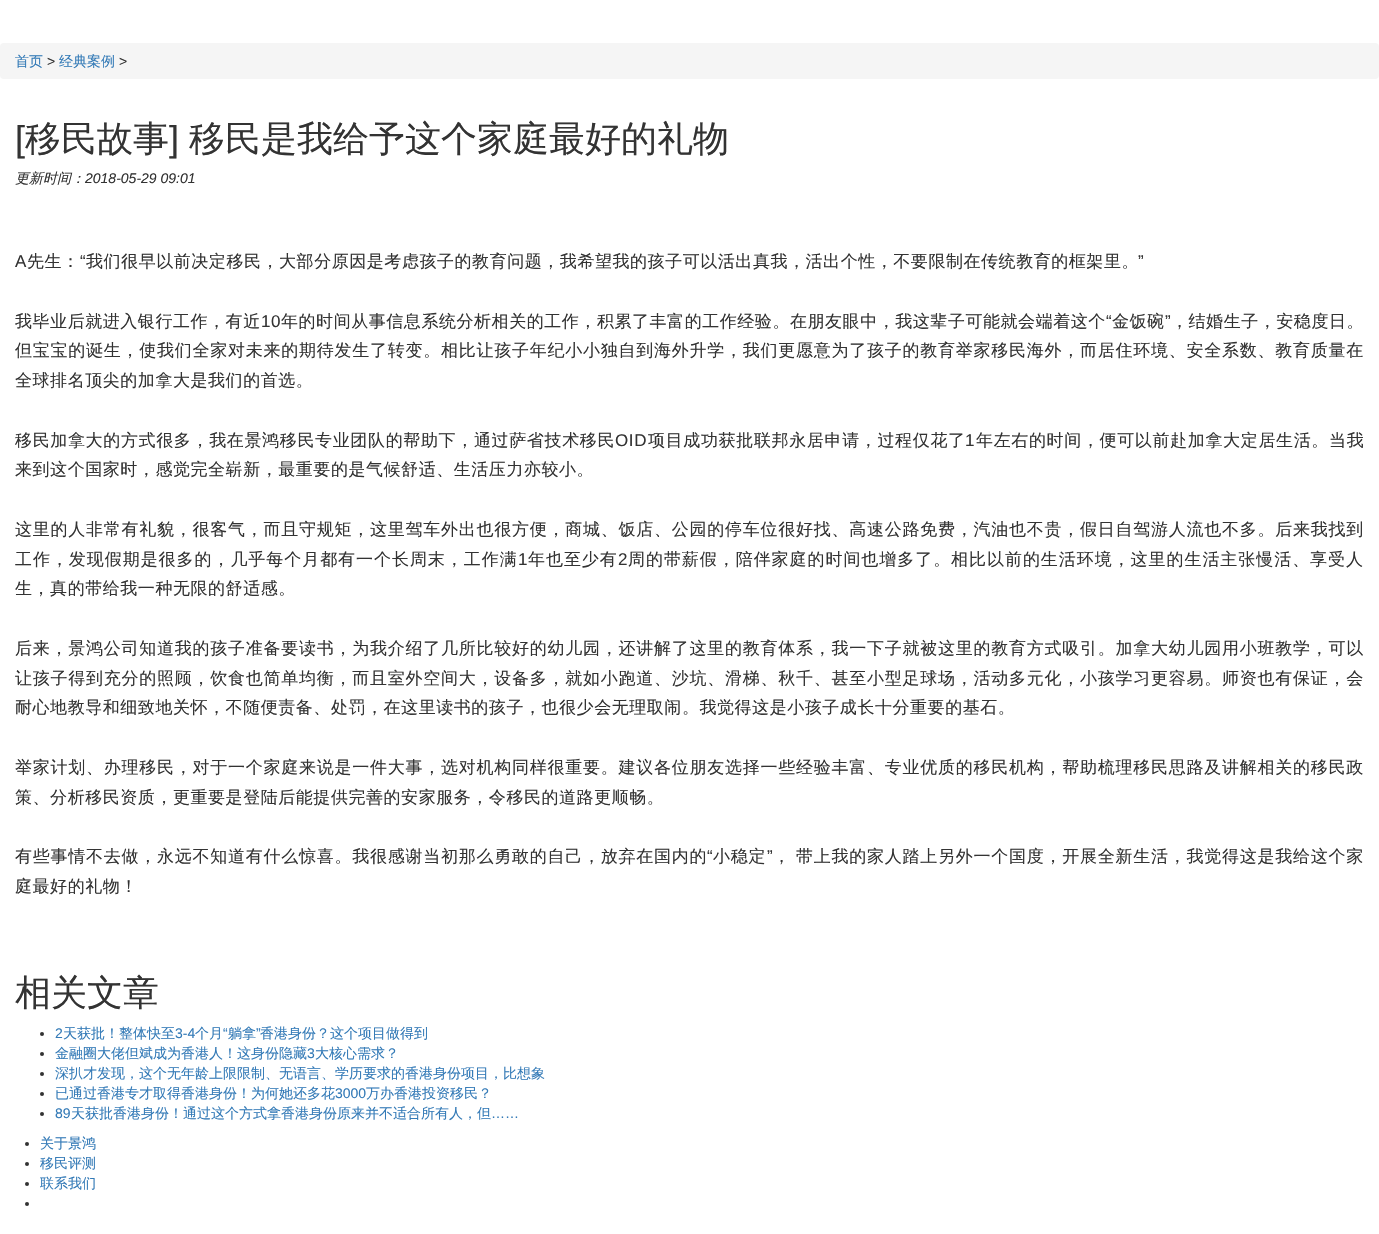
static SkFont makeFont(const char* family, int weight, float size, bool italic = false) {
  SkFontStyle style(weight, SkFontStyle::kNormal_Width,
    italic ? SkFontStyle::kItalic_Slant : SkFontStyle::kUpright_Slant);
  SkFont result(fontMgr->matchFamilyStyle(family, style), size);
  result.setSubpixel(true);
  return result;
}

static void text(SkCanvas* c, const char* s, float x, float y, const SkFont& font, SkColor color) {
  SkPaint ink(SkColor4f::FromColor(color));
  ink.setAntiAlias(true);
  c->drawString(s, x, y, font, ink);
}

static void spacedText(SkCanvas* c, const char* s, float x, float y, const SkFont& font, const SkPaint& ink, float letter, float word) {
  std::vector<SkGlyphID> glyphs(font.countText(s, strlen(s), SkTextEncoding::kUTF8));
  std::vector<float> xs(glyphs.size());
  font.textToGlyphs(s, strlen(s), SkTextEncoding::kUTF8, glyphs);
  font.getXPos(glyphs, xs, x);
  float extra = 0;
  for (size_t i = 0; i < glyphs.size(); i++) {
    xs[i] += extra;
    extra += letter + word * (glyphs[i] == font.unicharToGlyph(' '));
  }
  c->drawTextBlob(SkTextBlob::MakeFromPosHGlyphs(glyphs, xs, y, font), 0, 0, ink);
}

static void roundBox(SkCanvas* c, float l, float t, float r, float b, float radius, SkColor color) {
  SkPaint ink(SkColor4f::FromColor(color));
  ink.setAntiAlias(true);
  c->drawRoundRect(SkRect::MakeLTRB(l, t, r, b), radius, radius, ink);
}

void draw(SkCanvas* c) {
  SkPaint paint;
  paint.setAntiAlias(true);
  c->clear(0xffffffff);
  roundBox(c, 0, 43, 1379, 79, 4, 0xfff5f5f5);
  SkFont face1 = makeFont("WenQuanYi Zen Hei", 500, 14);
  text(c, "首页", 15, 66, face1, 0xff337ab7);
  SkFont face2 = makeFont("Liberation Sans", 400, 14);
  text(c, ">", 47, 66, face2, 0xff333333);
  text(c, "经典案例", 59, 66, face1, 0xff337ab7);
  text(c, ">", 119, 66, face2, 0xff333333);
  SkFont face3 = makeFont("Liberation Sans", 400, 36);
  text(c, "[", 15, 151, face3, 0xff333333);
  SkFont face4 = makeFont("WenQuanYi Zen Hei", 500, 36);
  text(c, "移民故事", 25, 151, face4, 0xff333333);
  text(c, "]", 169, 151, face3, 0xff333333);
  text(c, "移民是我给予这个家庭最好的礼物", 189, 151, face4, 0xff333333);
  SkFont face5 = makeFont("WenQuanYi Zen Hei", 500, 14, true);
  text(c, "更新时间：", 15, 183, face5, 0xff333333);
  SkFont face6 = makeFont("Liberation Sans", 400, 14, true);
  text(c, "2018-05-29 09:01", 85, 183, face6, 0xff333333);
  SkFont face7 = makeFont("Liberation Sans", 400, 17);
  paint.setColor(0xff333333);
  spacedText(c, "A", 15, 267, face7, paint, 0.55f, 0);
  SkFont face8 = makeFont("WenQuanYi Zen Hei", 500, 17);
  spacedText(c, "先生：", 27, 267, face8, paint, 0.55f, 0);
  spacedText(c, "“", 80, 267, face7, paint, 0.55f, 0);
  spacedText(c, "我们很早以前决定移民，大部分原因是考虑孩子的教育问题，我希望我的孩子可以活出真我，活出个性，不要限制在传统教育的框架里。", 86, 267, face8, paint, 0.55f, 0);
  spacedText(c, "”", 1138, 267, face7, paint, 0.55f, 0);
  spacedText(c, "我毕业后就进入银行工作，有近", 15, 327, face8, paint, 0.55f, 0);
  spacedText(c, "10", 261, 327, face7, paint, 0.55f, 0);
  spacedText(c, "年的时间从事信息系统分析相关的工作，积累了丰富的工作经验。在朋友眼中，我这辈子可能就会端着这个", 281, 327, face8, paint, 0.55f, 0);
  spacedText(c, "“", 1106, 327, face7, paint, 0.55f, 0);
  spacedText(c, "金饭碗", 1112, 327, face8, paint, 0.55f, 0);
  spacedText(c, "”", 1165, 327, face7, paint, 0.55f, 0);
  spacedText(c, "，结婚生子，安稳度日。", 1171, 327, face8, paint, 0.55f, 0);
  spacedText(c, "但宝宝的诞生，使我们全家对未来的期待发生了转变。相比让孩子年纪小小独自到海外升学，我们更愿意为了孩子的教育举家移民海外，而居住环境、安全系数、教育质量在", 15, 356, face8, paint, 0.75f, 0);
  spacedText(c, "全球排名顶尖的加拿大是我们的首选。", 15, 386, face8, paint, 0.55f, 0);
  spacedText(c, "移民加拿大的方式很多，我在景鸿移民专业团队的帮助下，通过萨省技术移民", 15, 446, face8, paint, 0.65f, 0);
  spacedText(c, "OID", 615, 446, face7, paint, 0.65f, 0);
  spacedText(c, "项目成功获批联邦永居申请，过程仅花了", 648, 446, face8, paint, 0.65f, 0);
  spacedText(c, "1", 965, 446, face7, paint, 0.65f, 0);
  spacedText(c, "年左右的时间，便可以前赴加拿大定居生活。当我", 976, 446, face8, paint, 0.65f, 0);
  spacedText(c, "来到这个国家时，感觉完全崭新，最重要的是气候舒适、生活压力亦较小。", 15, 475, face8, paint, 0.55f, 0);
  spacedText(c, "这里的人非常有礼貌，很客气，而且守规矩，这里驾车外出也很方便，商城、饭店、公园的停车位很好找、高速公路免费，汽油也不贵，假日自驾游人流也不多。后来我找到", 15, 535, face8, paint, 0.75f, 0);
  spacedText(c, "工作，发现假期是很多的，几乎每个月都有一个长周末，工作满", 15, 565, face8, paint, 0.95f, 0);
  spacedText(c, "1", 518, 565, face7, paint, 0.95f, 0);
  spacedText(c, "年也至少有", 528, 565, face8, paint, 0.95f, 0);
  spacedText(c, "2", 618, 565, face7, paint, 0.95f, 0);
  spacedText(c, "周的带薪假，陪伴家庭的时间也增多了。相比以前的生活环境，这里的生活主张慢活、享受人", 628, 565, face8, paint, 0.95f, 0);
  spacedText(c, "生，真的带给我一种无限的舒适感。", 15, 594, face8, paint, 0.55f, 0);
  spacedText(c, "后来，景鸿公司知道我的孩子准备要读书，为我介绍了几所比较好的幼儿园，还讲解了这里的教育体系，我一下子就被这里的教育方式吸引。加拿大幼儿园用小班教学，可以", 15, 654, face8, paint, 0.75f, 0);
  spacedText(c, "让孩子得到充分的照顾，饮食也简单均衡，而且室外空间大，设备多，就如小跑道、沙坑、滑梯、秋千、甚至小型足球场，活动多元化，小孩学习更容易。师资也有保证，会", 15, 684, face8, paint, 0.75f, 0);
  spacedText(c, "耐心地教导和细致地关怀，不随便责备、处罚，在这里读书的孩子，也很少会无理取闹。我觉得这是小孩子成长十分重要的基石。", 15, 713, face8, paint, 0.55f, 0);
  spacedText(c, "举家计划、办理移民，对于一个家庭来说是一件大事，选对机构同样很重要。建议各位朋友选择一些经验丰富、专业优质的移民机构，帮助梳理移民思路及讲解相关的移民政", 15, 773, face8, paint, 0.75f, 0);
  spacedText(c, "策、分析移民资质，更重要是登陆后能提供完善的安家服务，令移民的道路更顺畅。", 15, 803, face8, paint, 0.55f, 0);
  spacedText(c, "有些事情不去做，永远不知道有什么惊喜。我很感谢当初那么勇敢的自己，放弃在国内的", 15, 862, face8, paint, 0.75f, 0);
  spacedText(c, "“", 707, 862, face7, paint, 0.75f, 0);
  spacedText(c, "小稳定", 713, 862, face8, paint, 0.75f, 0);
  spacedText(c, "”", 767, 862, face7, paint, 0.75f, 0);
  spacedText(c, "带上我的家人踏上另外一个国度，开展全新生活，我觉得这是我给这个家", 796, 862, face8, paint, 0.75f, 0);
  spacedText(c, "，", 773, 862, face8, paint, 0.75f, 0);
  spacedText(c, "庭最好的礼物！", 15, 892, face8, paint, 0.55f, 0);
  text(c, "相关文章", 15, 1005, face4, 0xff333333);
  text(c, "2", 55, 1038, face2, 0xff337ab7);
  text(c, "天获批！整体快至", 63, 1038, face1, 0xff337ab7);
  text(c, "3-4", 175, 1038, face2, 0xff337ab7);
  text(c, "个月", 195, 1038, face1, 0xff337ab7);
  text(c, "“", 223, 1038, face2, 0xff337ab7);
  text(c, "躺拿", 228, 1038, face1, 0xff337ab7);
  text(c, "”", 256, 1038, face2, 0xff337ab7);
  text(c, "香港身份？这个项目做得到", 260, 1038, face1, 0xff337ab7);
  c->drawCircle(42, 1034, 2, paint);
  c->drawCircle(42, 1054, 2, paint);
  text(c, "金融圈大佬但斌成为香港人！这身份隐藏", 55, 1058, face1, 0xff337ab7);
  text(c, "3", 307, 1058, face2, 0xff337ab7);
  text(c, "大核心需求？", 315, 1058, face1, 0xff337ab7);
  c->drawCircle(42, 1074, 2, paint);
  text(c, "深扒才发现，这个无年龄上限限制、无语言、学历要求的香港身份项目，比想象", 55, 1078, face1, 0xff337ab7);
  c->drawCircle(42, 1094, 2, paint);
  text(c, "已通过香港专才取得香港身份！为何她还多花", 55, 1098, face1, 0xff337ab7);
  text(c, "3000", 335, 1098, face2, 0xff337ab7);
  text(c, "万办香港投资移民？", 366, 1098, face1, 0xff337ab7);
  c->drawCircle(42, 1114, 2, paint);
  text(c, "89", 55, 1118, face2, 0xff337ab7);
  text(c, "天获批香港身份！通过这个方式拿香港身份原来并不适合所有人，但", 71, 1118, face1, 0xff337ab7);
  text(c, "……", 491, 1118, face2, 0xff337ab7);
  c->drawCircle(27, 1144, 2, paint);
  text(c, "关于景鸿", 40, 1148, face1, 0xff337ab7);
  c->drawCircle(27, 1164, 2, paint);
  text(c, "移民评测", 40, 1168, face1, 0xff337ab7);
  c->drawCircle(27, 1184, 2, paint);
  text(c, "联系我们", 40, 1188, face1, 0xff337ab7);
  c->drawCircle(27, 1204, 2, paint);
}
